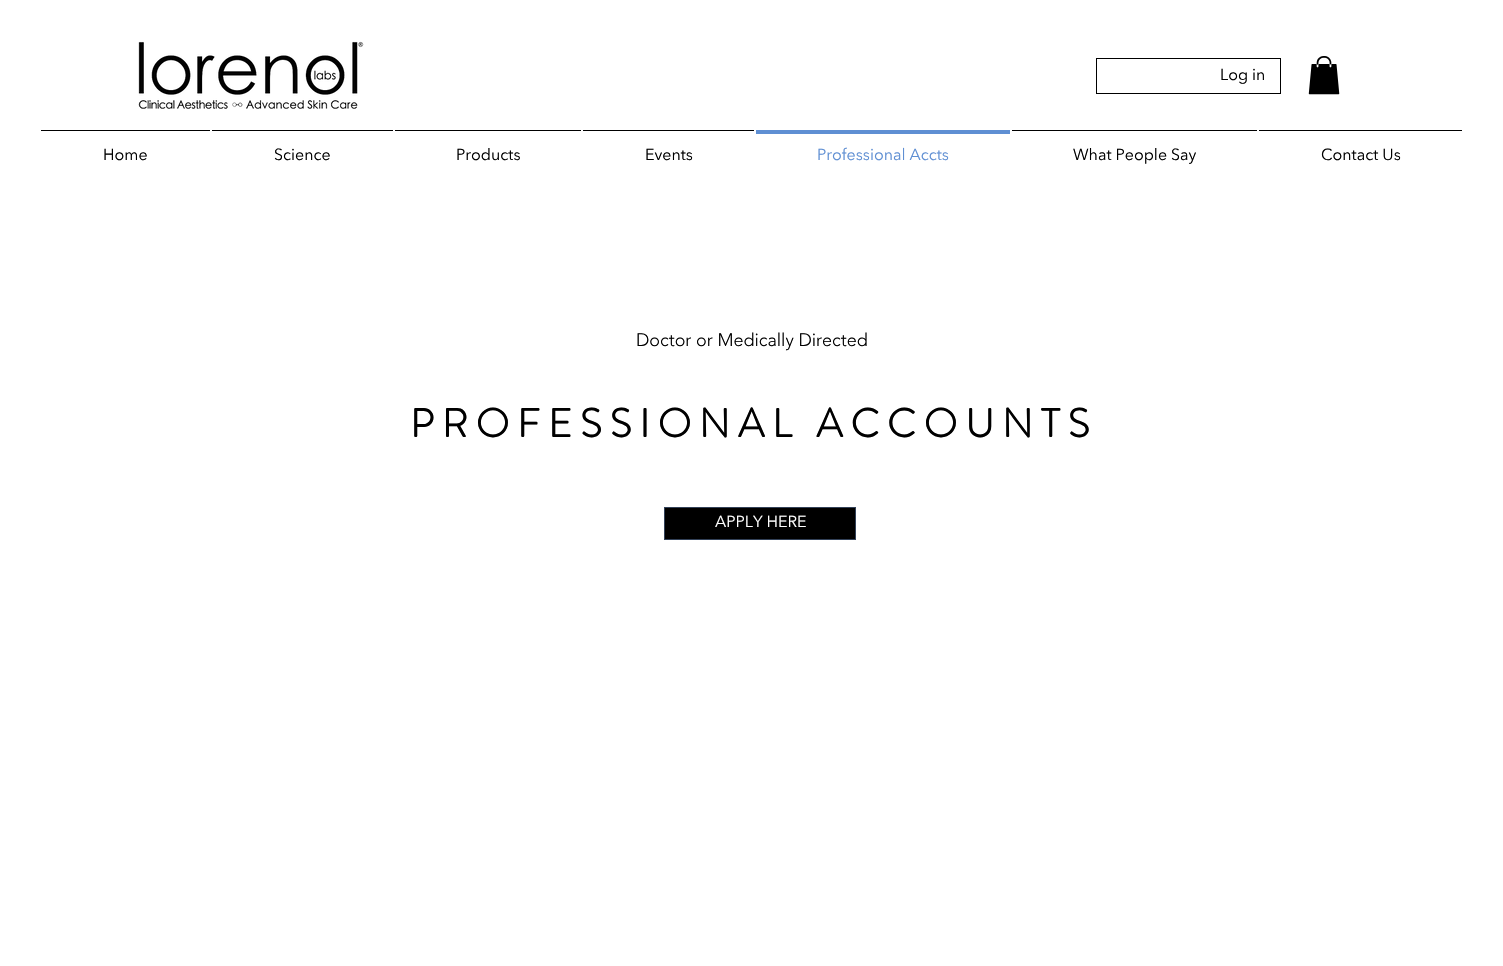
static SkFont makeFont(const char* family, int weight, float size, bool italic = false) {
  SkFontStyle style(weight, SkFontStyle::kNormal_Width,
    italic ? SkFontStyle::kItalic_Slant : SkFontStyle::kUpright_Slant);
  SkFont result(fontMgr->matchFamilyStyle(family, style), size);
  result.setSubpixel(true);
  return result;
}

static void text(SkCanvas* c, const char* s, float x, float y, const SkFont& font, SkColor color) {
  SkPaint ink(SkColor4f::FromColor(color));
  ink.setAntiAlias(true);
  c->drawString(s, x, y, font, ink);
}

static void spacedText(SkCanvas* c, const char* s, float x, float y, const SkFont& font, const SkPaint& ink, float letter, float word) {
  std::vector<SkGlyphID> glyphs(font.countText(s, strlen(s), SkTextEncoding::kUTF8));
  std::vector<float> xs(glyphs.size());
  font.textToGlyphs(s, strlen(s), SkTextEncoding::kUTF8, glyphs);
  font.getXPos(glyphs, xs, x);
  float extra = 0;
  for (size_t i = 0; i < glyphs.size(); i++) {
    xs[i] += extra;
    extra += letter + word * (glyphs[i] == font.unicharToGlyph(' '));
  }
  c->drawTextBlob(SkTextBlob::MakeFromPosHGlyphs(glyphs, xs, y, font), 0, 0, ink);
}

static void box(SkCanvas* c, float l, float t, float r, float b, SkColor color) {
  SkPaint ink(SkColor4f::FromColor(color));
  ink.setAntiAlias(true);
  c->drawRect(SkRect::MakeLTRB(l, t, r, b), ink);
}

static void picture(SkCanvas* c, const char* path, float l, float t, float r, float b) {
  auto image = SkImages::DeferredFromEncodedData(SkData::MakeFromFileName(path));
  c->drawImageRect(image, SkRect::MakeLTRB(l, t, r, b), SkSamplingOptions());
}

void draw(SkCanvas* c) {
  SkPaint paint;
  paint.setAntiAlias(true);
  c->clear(0xffffffff);
  picture(c, "img_01.png", 138, 41, 364, 109);
  paint.setStyle(SkPaint::kStroke_Style);
  paint.setStrokeWidth(1);
  paint.setColor(0xff000000);
  c->drawRect(SkRect::MakeLTRB(1096.5f, 58.5f, 1280.5f, 93.5f), paint);
  SkFont face1 = makeFont("Avenir Next", 400, 16);
  text(c, "Log in", 1220, 80, face1, 0xff000000);
  picture(c, "img_02.png", 1308, 56, 1340, 95);
  box(c, 41, 130, 210, 131, 0xff000000);
  text(c, "Home", 103, 160, face1, 0xff000000);
  box(c, 212, 130, 393, 131, 0xff000000);
  text(c, "Science", 274, 160, face1, 0xff000000);
  box(c, 395, 130, 581, 131, 0xff000000);
  text(c, "Products", 456, 160, face1, 0xff000000);
  box(c, 583, 130, 754, 131, 0xff000000);
  text(c, "Events", 645, 160, face1, 0xff000000);
  box(c, 756, 130, 1010, 134, 0xff5f8fd3);
  text(c, "Professional Accts", 817, 160, face1, 0xff5f8fd3);
  box(c, 1012, 130, 1257, 131, 0xff000000);
  text(c, "What People Say", 1073, 160, face1, 0xff000000);
  box(c, 1259, 130, 1462, 131, 0xff000000);
  text(c, "Contact Us", 1321, 160, face1, 0xff000000);
  SkFont face2 = makeFont("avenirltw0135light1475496", 300, 18);
  text(c, "Doctor or Medically Directed", 636, 346, face2, 0xff000000);
  SkFont face3 = makeFont("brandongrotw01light", 700, 40);
  paint.setStyle(SkPaint::kFill_Style);
  spacedText(c, "PROFESSIONAL ACCOUNTS", 410, 437, face3, paint, 8, 0);
  c->drawRect(SkRect::MakeLTRB(664.5f, 507.5f, 855.5f, 539.5f), paint);
  paint.setStyle(SkPaint::kStroke_Style);
  paint.setColor(0xff324158);
  c->drawRect(SkRect::MakeLTRB(664.5f, 507.5f, 855.5f, 539.5f), paint);
  text(c, "APPLY HERE", 715, 527, face1, 0xffffffff);
}
